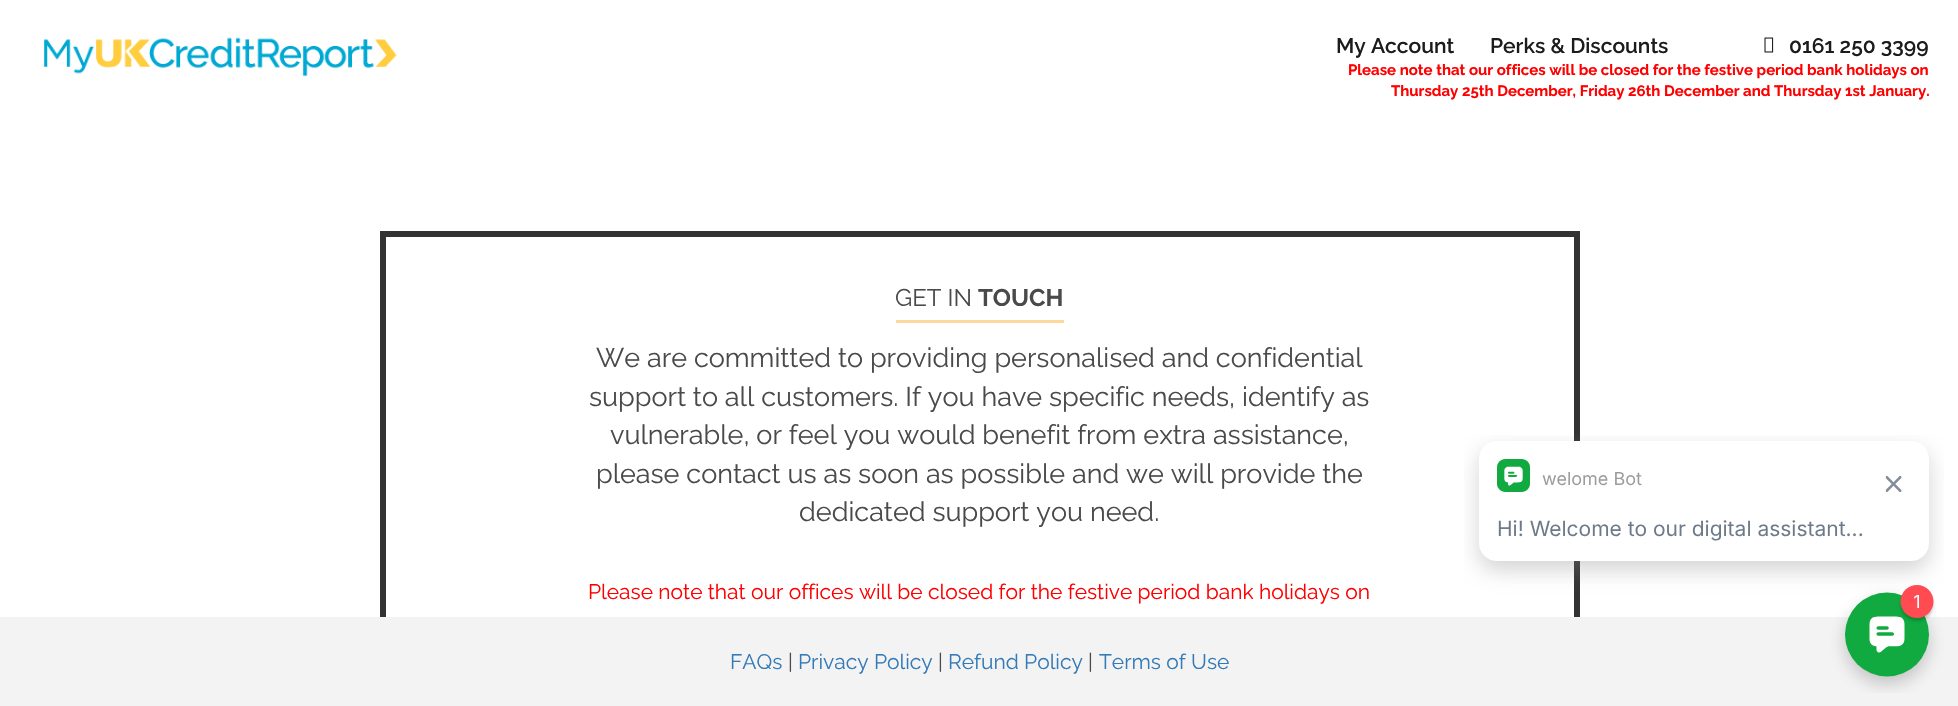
static SkFont makeFont(const char* family, int weight, float size, bool italic = false) {
  SkFontStyle style(weight, SkFontStyle::kNormal_Width,
    italic ? SkFontStyle::kItalic_Slant : SkFontStyle::kUpright_Slant);
  SkFont result(fontMgr->matchFamilyStyle(family, style), size);
  result.setSubpixel(true);
  return result;
}

static void text(SkCanvas* c, const char* s, float x, float y, const SkFont& font, SkColor color) {
  SkPaint ink(SkColor4f::FromColor(color));
  ink.setAntiAlias(true);
  c->drawString(s, x, y, font, ink);
}

static void box(SkCanvas* c, float l, float t, float r, float b, SkColor color) {
  SkPaint ink(SkColor4f::FromColor(color));
  ink.setAntiAlias(true);
  c->drawRect(SkRect::MakeLTRB(l, t, r, b), ink);
}

static void picture(SkCanvas* c, const char* path, float l, float t, float r, float b) {
  auto image = SkImages::DeferredFromEncodedData(SkData::MakeFromFileName(path));
  c->drawImageRect(image, SkRect::MakeLTRB(l, t, r, b), SkSamplingOptions());
}

void draw(SkCanvas* c) {
  SkPaint paint;
  paint.setAntiAlias(true);
  c->clear(0xffffffff);
  picture(c, "img_01.png", 44, 37, 397, 77);
  SkFont face1 = makeFont("Raleway", 600, 21);
  text(c, "My Account", 1336, 53, face1, 0xff1c1c1c);
  text(c, "Perks & Discounts", 1490, 53, face1, 0xff1c1c1c);
  picture(c, "img_02.png", 1764, 37, 1774, 53);
  text(c, "0161 250 3399", 1789, 53, face1, 0xff1c1c1c);
  SkFont face2 = makeFont("Raleway", 700, 15);
  text(c, "Please note that our offices will be closed for the festive period bank holidays on", 1348, 75, face2, 0xffff0000);
  text(c, "Thursday 25th December, Friday 26th December and Thursday 1st January.", 1391, 96, face2, 0xffff0000);
  paint.setStyle(SkPaint::kStroke_Style);
  paint.setStrokeWidth(6);
  paint.setColor(0xff333333);
  c->drawRect(SkRect::MakeLTRB(383, 234, 1577, 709), paint);
  SkFont face3 = makeFont("Raleway", 400, 24);
  text(c, "GET IN", 895, 306, face3, 0xff4a4a4a);
  box(c, 896, 320, 1064, 323, 0xfffdd89d);
  SkFont face4 = makeFont("Raleway", 700, 24);
  text(c, "TOUCH", 978, 306, face4, 0xff4a4a4a);
  SkFont face5 = makeFont("Raleway", 400, 27);
  text(c, "We are committed to providing personalised and confidential", 596, 367, face5, 0xff4a4a4a);
  text(c, "support to all customers. If you have specific needs, identify as", 589, 406, face5, 0xff4a4a4a);
  text(c, "vulnerable, or feel you would benefit from extra assistance,", 610, 444, face5, 0xff4a4a4a);
  text(c, "please contact us as soon as possible and we will provide the", 596, 483, face5, 0xff4a4a4a);
  text(c, "dedicated support you need.", 799, 521, face5, 0xff4a4a4a);
  SkFont face6 = makeFont("Raleway", 400, 21);
  text(c, "Please note that our offices will be closed for the festive period bank holidays on", 588, 599, face6, 0xffff0000);
  box(c, 0, 617, 1958, 706, 0xfff3f3f3);
  picture(c, "img_03.png", 1464, 435, 1944, 693);
  text(c, "FAQs", 730, 669, face6, 0xff337ab7);
  text(c, "|", 788, 669, face6, 0xff4a4a4a);
  text(c, "Privacy Policy", 798, 669, face6, 0xff337ab7);
  text(c, "|", 938, 669, face6, 0xff4a4a4a);
  text(c, "Refund Policy", 948, 669, face6, 0xff337ab7);
  text(c, "|", 1088, 669, face6, 0xff4a4a4a);
  text(c, "Terms of Use", 1099, 669, face6, 0xff337ab7);
}
